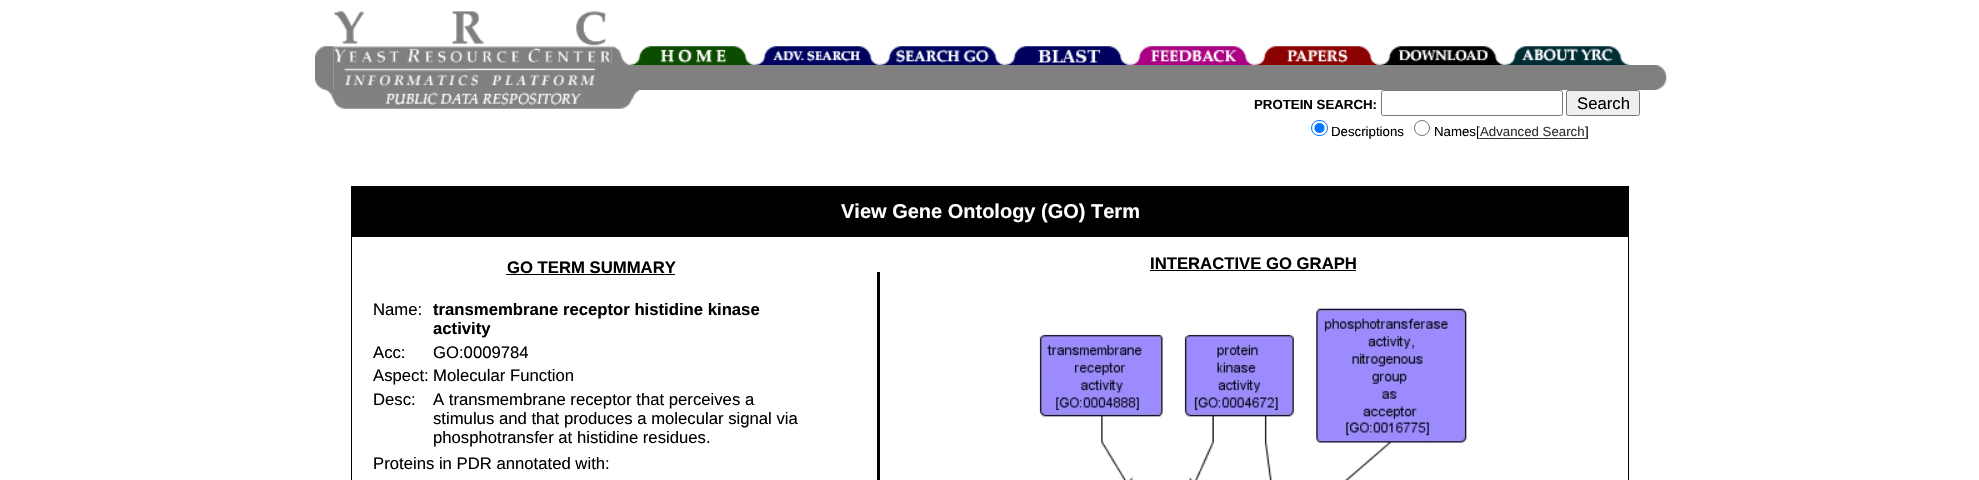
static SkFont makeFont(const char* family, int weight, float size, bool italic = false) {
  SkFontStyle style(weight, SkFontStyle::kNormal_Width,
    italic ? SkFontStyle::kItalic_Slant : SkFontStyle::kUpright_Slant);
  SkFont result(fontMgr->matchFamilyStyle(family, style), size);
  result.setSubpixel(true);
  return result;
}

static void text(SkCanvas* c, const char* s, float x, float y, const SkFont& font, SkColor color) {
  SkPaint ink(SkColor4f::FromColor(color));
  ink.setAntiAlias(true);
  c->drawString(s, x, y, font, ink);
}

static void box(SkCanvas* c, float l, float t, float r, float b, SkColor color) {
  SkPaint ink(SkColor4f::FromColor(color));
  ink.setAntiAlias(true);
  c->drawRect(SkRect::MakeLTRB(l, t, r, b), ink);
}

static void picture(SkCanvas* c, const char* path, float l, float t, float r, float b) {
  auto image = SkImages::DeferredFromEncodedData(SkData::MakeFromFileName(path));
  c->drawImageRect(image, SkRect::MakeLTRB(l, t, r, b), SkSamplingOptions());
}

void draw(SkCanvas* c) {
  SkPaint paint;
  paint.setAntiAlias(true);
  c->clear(0xffffffff);
  picture(c, "img_01.png", 315, 46, 334, 65);
  picture(c, "img_02.png", 333, 11, 612, 65);
  picture(c, "img_03.png", 611, 46, 630, 65);
  picture(c, "img_04.png", 630, 46, 755, 65);
  picture(c, "img_05.png", 755, 46, 880, 65);
  picture(c, "img_06.png", 880, 46, 1005, 65);
  picture(c, "img_07.png", 1005, 46, 1130, 65);
  picture(c, "img_08.png", 1130, 46, 1255, 65);
  picture(c, "img_09.png", 1255, 46, 1380, 65);
  picture(c, "img_10.png", 1380, 46, 1505, 65);
  picture(c, "img_11.png", 1505, 46, 1630, 65);
  picture(c, "img_12.png", 315, 65, 334, 90);
  picture(c, "img_13.png", 333, 65, 610, 90);
  box(c, 610, 65, 1648, 90, 0xff808080);
  picture(c, "img_14.png", 1648, 65, 1667, 90);
  picture(c, "img_15.png", 326, 90, 639, 109);
  SkFont face1 = makeFont("Liberation Sans", 700, 13.25f);
  text(c, "PROTEIN SEARCH:", 1254, 109, face1, 0xff000000);
  paint.setStyle(SkPaint::kStroke_Style);
  paint.setStrokeWidth(1);
  paint.setColor(0xff767676);
  c->drawRoundRect(SkRect::MakeLTRB(1381.5f, 90.5f, 1562.5f, 115.5f), 2, 2, paint);
  paint.setStyle(SkPaint::kFill_Style);
  paint.setColor(0xffefefef);
  c->drawRoundRect(SkRect::MakeLTRB(1566.5f, 90.5f, 1639.5f, 115.5f), 2, 2, paint);
  paint.setStyle(SkPaint::kStroke_Style);
  paint.setColor(0xff767676);
  c->drawRoundRect(SkRect::MakeLTRB(1566.5f, 90.5f, 1639.5f, 115.5f), 2, 2, paint);
  SkFont face2 = makeFont("Liberation Sans", 400, 16.7f);
  text(c, "Search", 1577, 109, face2, 0xff000000);
  paint.setColor(0xff0075ff);
  c->drawRoundRect(SkRect::MakeLTRB(1311.5f, 120.5f, 1327.5f, 135.5f), 7.5f, 7.5f, paint);
  paint.setStyle(SkPaint::kFill_Style);
  c->drawCircle(1319.5f, 128, 5, paint);
  SkFont face3 = makeFont("Liberation Sans", 400, 13.25f);
  text(c, "Descriptions", 1331, 136, face3, 0xff000000);
  paint.setStyle(SkPaint::kStroke_Style);
  paint.setColor(0xff767676);
  c->drawCircle(1422, 128, 7.5f, paint);
  text(c, "Names[", 1434, 136, face3, 0xff000000);
  text(c, "Advanced Search", 1480, 136, face3, 0xff323232);
  box(c, 1480, 138, 1585, 139, 0xff323232);
  text(c, "]", 1585, 136, face3, 0xff000000);
  box(c, 351, 186, 1629, 236, 0xff000000);
  SkFont face4 = makeFont("Liberation Sans", 700, 20);
  text(c, "View Gene Ontology (GO) Term", 841, 218, face4, 0xffffffff);
  paint.setColor(0xff000000);
  c->drawRect(SkRect::MakeLTRB(351.5f, 236.5f, 1628.5f, 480.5f), paint);
  SkFont face5 = makeFont("Liberation Sans", 700, 16.7f);
  text(c, "GO TERM SUMMARY", 507, 273, face5, 0xff000000);
  box(c, 506, 274, 675, 275, 0xff000000);
  text(c, "Name:", 373, 315, face2, 0xff000000);
  text(c, "transmembrane receptor histidine kinase", 433, 315, face5, 0xff000000);
  text(c, "activity", 433, 334, face5, 0xff000000);
  text(c, "Acc:", 373, 358, face2, 0xff000000);
  text(c, "GO:0009784", 433, 358, face2, 0xff000000);
  text(c, "Aspect:", 373, 381, face2, 0xff000000);
  text(c, "Molecular Function", 433, 381, face2, 0xff000000);
  text(c, "Desc:", 373, 405, face2, 0xff000000);
  text(c, "A transmembrane receptor that perceives a", 433, 405, face2, 0xff000000);
  text(c, "stimulus and that produces a molecular signal via", 433, 424, face2, 0xff000000);
  text(c, "phosphotransfer at histidine residues.", 433, 443, face2, 0xff000000);
  text(c, "Proteins in PDR annotated with:", 373, 469, face2, 0xff000000);
  box(c, 877, 272, 880, 480, 0xff000000);
  text(c, "INTERACTIVE GO GRAPH", 1150, 269, face5, 0xff000000);
  box(c, 1150, 270, 1356, 271, 0xff000000);
  picture(c, "img_16.png", 1039, 308, 1467, 480);
}
